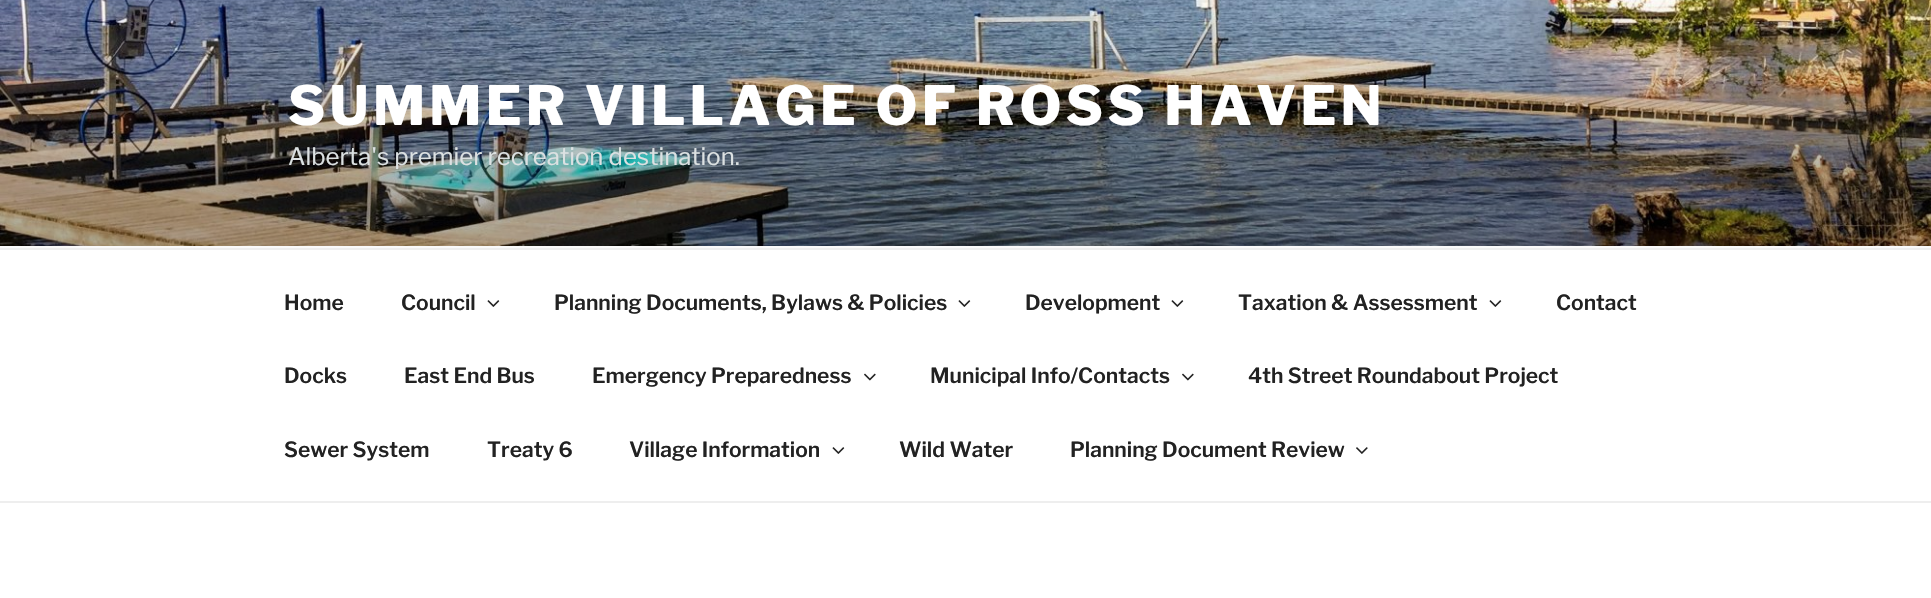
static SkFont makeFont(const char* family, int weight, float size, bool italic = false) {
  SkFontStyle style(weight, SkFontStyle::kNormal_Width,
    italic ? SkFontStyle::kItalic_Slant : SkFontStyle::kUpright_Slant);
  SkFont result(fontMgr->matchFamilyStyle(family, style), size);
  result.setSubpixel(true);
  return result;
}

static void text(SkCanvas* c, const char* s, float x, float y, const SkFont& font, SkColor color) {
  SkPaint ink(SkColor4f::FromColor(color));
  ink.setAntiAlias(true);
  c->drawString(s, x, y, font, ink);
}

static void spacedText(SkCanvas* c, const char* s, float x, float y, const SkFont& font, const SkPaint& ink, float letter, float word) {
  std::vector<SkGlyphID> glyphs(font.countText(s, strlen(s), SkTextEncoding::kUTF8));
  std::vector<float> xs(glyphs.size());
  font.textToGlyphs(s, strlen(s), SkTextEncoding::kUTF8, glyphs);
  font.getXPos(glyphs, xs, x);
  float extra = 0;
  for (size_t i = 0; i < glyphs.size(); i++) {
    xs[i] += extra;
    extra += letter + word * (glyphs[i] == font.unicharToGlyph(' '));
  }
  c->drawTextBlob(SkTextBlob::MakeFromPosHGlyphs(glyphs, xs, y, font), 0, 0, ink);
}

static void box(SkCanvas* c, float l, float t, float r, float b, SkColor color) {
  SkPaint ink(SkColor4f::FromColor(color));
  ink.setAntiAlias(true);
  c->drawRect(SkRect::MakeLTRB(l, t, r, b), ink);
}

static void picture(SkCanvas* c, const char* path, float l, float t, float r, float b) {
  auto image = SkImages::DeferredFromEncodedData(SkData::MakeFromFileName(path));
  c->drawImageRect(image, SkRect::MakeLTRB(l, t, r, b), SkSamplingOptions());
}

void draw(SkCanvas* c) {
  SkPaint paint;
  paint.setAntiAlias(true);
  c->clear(0xffffffff);
  box(c, 0, 246, 1931, 248, 0xfffafafa);
  picture(c, "img_01.png", 0, 0, 1931, 246);
  SkFont face1 = makeFont("Libre Franklin", 100, 54);
  paint.setColor(0xffffffff);
  spacedText(c, "SUMMER VILLAGE OF ROSS HAVEN", 288, 125, face1, paint, 4.3f, 0);
  SkFont face2 = makeFont("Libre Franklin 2", 100, 24);
  text(c, "Alberta's premier recreation destination.", 288, 165, face2, 0xffdce1e2);
  box(c, 0, 248, 1931, 250, 0xffeeeeee);
  box(c, 0, 501, 1931, 503, 0xffeeeeee);
  SkFont face3 = makeFont("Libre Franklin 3", 100, 21);
  text(c, "Home", 284, 310, face3, 0xff222222);
  text(c, "Council", 401, 310, face3, 0xff222222);
  picture(c, "img_02.png", 487, 300, 500, 307);
  text(c, "Planning Documents, Bylaws & Policies", 554, 310, face3, 0xff222222);
  picture(c, "img_02.png", 958, 300, 971, 307);
  text(c, "Development", 1025, 310, face3, 0xff222222);
  picture(c, "img_02.png", 1171, 300, 1184, 307);
  text(c, "Taxation & Assessment", 1238, 310, face3, 0xff222222);
  picture(c, "img_02.png", 1489, 300, 1502, 307);
  text(c, "Contact", 1556, 310, face3, 0xff222222);
  text(c, "Docks", 284, 383, face3, 0xff222222);
  text(c, "East End Bus", 404, 383, face3, 0xff222222);
  text(c, "Emergency Preparedness", 592, 383, face3, 0xff222222);
  picture(c, "img_03.png", 864, 373, 876, 381);
  text(c, "Municipal Info/Contacts", 930, 383, face3, 0xff222222);
  picture(c, "img_03.png", 1182, 373, 1194, 381);
  text(c, "4th Street Roundabout Project", 1248, 383, face3, 0xff222222);
  text(c, "Sewer System", 284, 457, face3, 0xff222222);
  text(c, "Treaty 6", 487, 457, face3, 0xff222222);
  text(c, "Village Information", 629, 457, face3, 0xff222222);
  picture(c, "img_02.png", 832, 447, 845, 454);
  text(c, "Wild Water", 899, 457, face3, 0xff222222);
  text(c, "Planning Document Review", 1070, 457, face3, 0xff222222);
  picture(c, "img_04.png", 1356, 447, 1368, 454);
}
